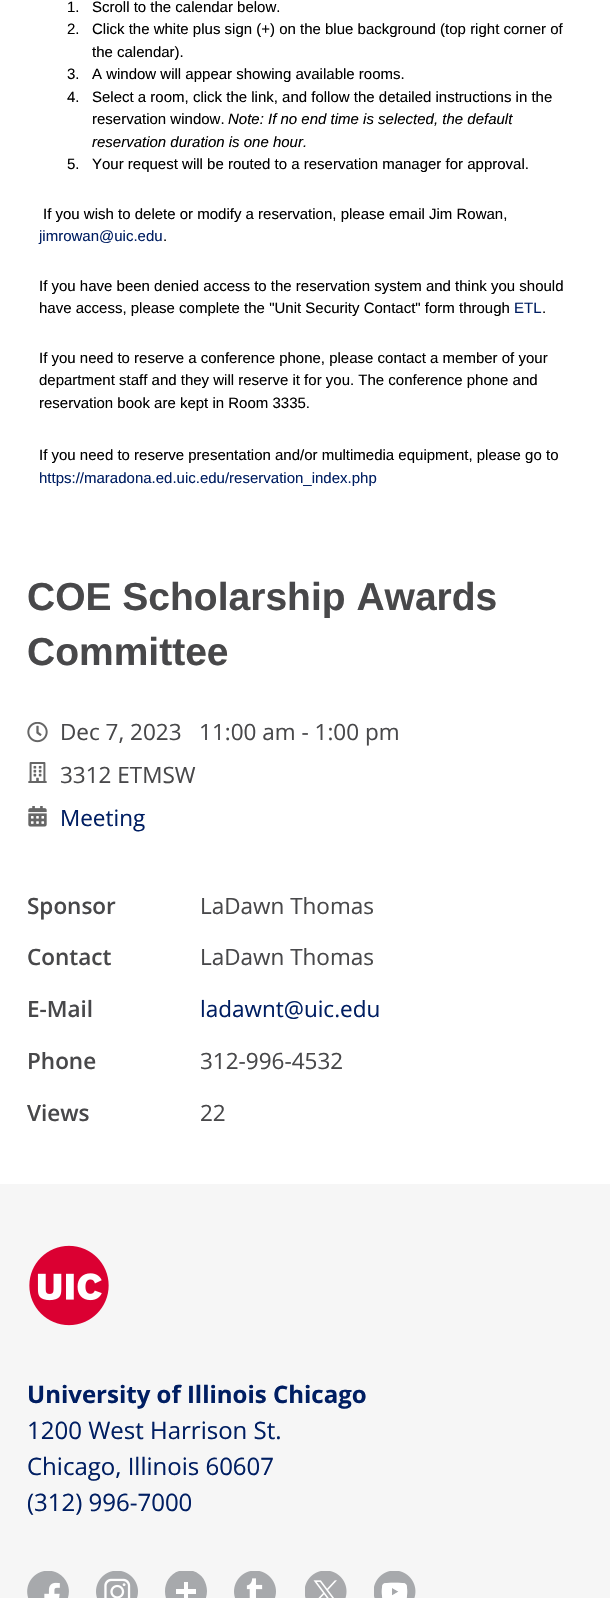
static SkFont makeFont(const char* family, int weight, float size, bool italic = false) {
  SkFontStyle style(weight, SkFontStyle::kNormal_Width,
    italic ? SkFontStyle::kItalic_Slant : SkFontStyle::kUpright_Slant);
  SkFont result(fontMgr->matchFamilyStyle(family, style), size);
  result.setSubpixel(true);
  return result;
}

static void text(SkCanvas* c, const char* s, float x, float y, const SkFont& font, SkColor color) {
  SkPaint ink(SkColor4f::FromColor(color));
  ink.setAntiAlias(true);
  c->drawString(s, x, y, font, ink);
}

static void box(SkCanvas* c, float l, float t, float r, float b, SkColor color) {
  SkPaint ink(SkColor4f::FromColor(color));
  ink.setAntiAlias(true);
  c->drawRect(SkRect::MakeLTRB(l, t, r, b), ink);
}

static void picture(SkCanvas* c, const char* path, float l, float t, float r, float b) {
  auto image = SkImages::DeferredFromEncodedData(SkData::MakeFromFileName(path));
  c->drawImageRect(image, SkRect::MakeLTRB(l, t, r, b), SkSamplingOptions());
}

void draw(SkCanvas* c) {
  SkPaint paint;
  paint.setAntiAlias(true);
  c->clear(0xffffffff);
  SkFont face1 = makeFont("Liberation Sans", 400, 15);
  text(c, "1.", 67, 12, face1, 0xff000000);
  text(c, "Scroll to the calendar below.", 92, 12, face1, 0xff000000);
  text(c, "2.", 67, 34, face1, 0xff000000);
  text(c, "Click the white plus sign (+) on the blue background (top right corner of", 92, 34, face1, 0xff000000);
  text(c, "the calendar).", 92, 57, face1, 0xff000000);
  text(c, "3.", 67, 79, face1, 0xff000000);
  text(c, "A window will appear showing available rooms.", 92, 79, face1, 0xff000000);
  text(c, "4.", 67, 102, face1, 0xff000000);
  text(c, "Select a room, click the link, and follow the detailed instructions in the", 92, 102, face1, 0xff000000);
  text(c, "reservation window.", 92, 124, face1, 0xff000000);
  SkFont face2 = makeFont("Liberation Sans", 400, 15, true);
  text(c, "Note: If no end time is selected, the default", 228, 124, face2, 0xff000000);
  text(c, "reservation duration is one hour.", 92, 147, face2, 0xff000000);
  text(c, "5.", 67, 169, face1, 0xff000000);
  text(c, "Your request will be routed to a reservation manager for approval.", 92, 169, face1, 0xff000000);
  text(c, "If you wish to delete or modify a reservation, please email Jim Rowan,", 43, 219, face1, 0xff000000);
  text(c, "jimrowan@uic.edu", 39, 241, face1, 0xff001e62);
  text(c, ".", 163, 241, face1, 0xff000000);
  text(c, "If you have been denied access to the reservation system and think you should", 39, 291, face1, 0xff000000);
  text(c, "have access, please complete the \"Unit Security Contact\" form through", 39, 313, face1, 0xff000000);
  text(c, "ETL", 514, 313, face1, 0xff001e62);
  text(c, ".", 542, 313, face1, 0xff000000);
  text(c, "If you need to reserve a conference phone, please contact a member of your", 39, 363, face1, 0xff000000);
  text(c, "department staff and they will reserve it for you. The conference phone and", 39, 385, face1, 0xff000000);
  text(c, "reservation book are kept in Room 3335.", 39, 408, face1, 0xff000000);
  text(c, "If you need to reserve presentation and/or multimedia equipment, please go to", 39, 460, face1, 0xff000000);
  text(c, "https://maradona.ed.uic.edu/reservation_index.php", 39, 483, face1, 0xff001e62);
  SkFont face3 = makeFont("Liberation Sans", 700, 39);
  text(c, "COE Scholarship Awards", 27, 610, face3, 0xff48484a);
  text(c, "Committee", 27, 665, face3, 0xff48484a);
  picture(c, "img_01.png", 27, 722, 48, 743);
  SkFont face4 = makeFont("Open Sans", 400, 22.5f);
  text(c, "Dec 7, 2023   11:00 am - 1:00 pm", 60, 740, face4, 0xff48484a);
  picture(c, "img_02.png", 28, 762, 47, 783);
  text(c, "3312 ETMSW", 60, 783, face4, 0xff48484a);
  picture(c, "img_03.png", 28, 806, 47, 827);
  text(c, "Meeting", 60, 826, face4, 0xff001e62);
  SkFont face5 = makeFont("Open Sans", 600, 22.5f);
  text(c, "Sponsor", 27, 914, face5, 0xff48484a);
  text(c, "LaDawn Thomas", 200, 914, face4, 0xff48484a);
  text(c, "Contact", 27, 965, face5, 0xff48484a);
  text(c, "LaDawn Thomas", 200, 965, face4, 0xff48484a);
  text(c, "E-Mail", 27, 1017, face5, 0xff48484a);
  text(c, "ladawnt@uic.edu", 200, 1017, face4, 0xff001e62);
  text(c, "Phone", 27, 1069, face5, 0xff48484a);
  text(c, "312-996-4532", 200, 1069, face4, 0xff48484a);
  text(c, "Views", 27, 1121, face5, 0xff48484a);
  text(c, "22", 200, 1121, face4, 0xff48484a);
  box(c, 0, 1184, 610, 1598, 0xfff6f6f6);
  picture(c, "img_04.png", 29, 1245, 109, 1326);
  SkFont face6 = makeFont("Open Sans", 700, 24);
  text(c, "University of Illinois Chicago", 27, 1403, face6, 0xff001e62);
  SkFont face7 = makeFont("Open Sans", 400, 24);
  text(c, "1200 West Harrison St.", 27, 1439, face7, 0xff001e62);
  text(c, "Chicago, Illinois 60607", 27, 1475, face7, 0xff001e62);
  text(c, "(312) 996-7000", 27, 1511, face7, 0xff001e62);
  picture(c, "img_05.png", 27, 1571, 69, 1598);
  picture(c, "img_06.png", 96, 1571, 138, 1598);
  paint.setColor(0xffffffff);
  c->drawCircle(186, 1591, 18.5f, paint);
  c->save();
  c->clipRect(SkRect::MakeLTRB(165, 1571, 207, 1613));
  paint.setColor(0xffa7a9ac);
  c->drawPath(SkPathBuilder().moveTo(186, 1570).cubicTo(158, 1570, 158, 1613, 186, 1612).cubicTo(214, 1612, 214, 1570, 186, 1570).close().moveTo(196, 1594).lineTo(188, 1594).lineTo(188, 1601).lineTo(184, 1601).lineTo(184, 1594).lineTo(176, 1594).lineTo(176, 1589).lineTo(184, 1589).lineTo(184, 1582).lineTo(188, 1582).lineTo(188, 1589).lineTo(196, 1589).close().detach(), paint);
  c->restore();
  picture(c, "img_07.png", 234, 1571, 276, 1598);
  picture(c, "img_08.png", 305, 1571, 347, 1598);
  picture(c, "img_09.png", 374, 1571, 416, 1598);
}
